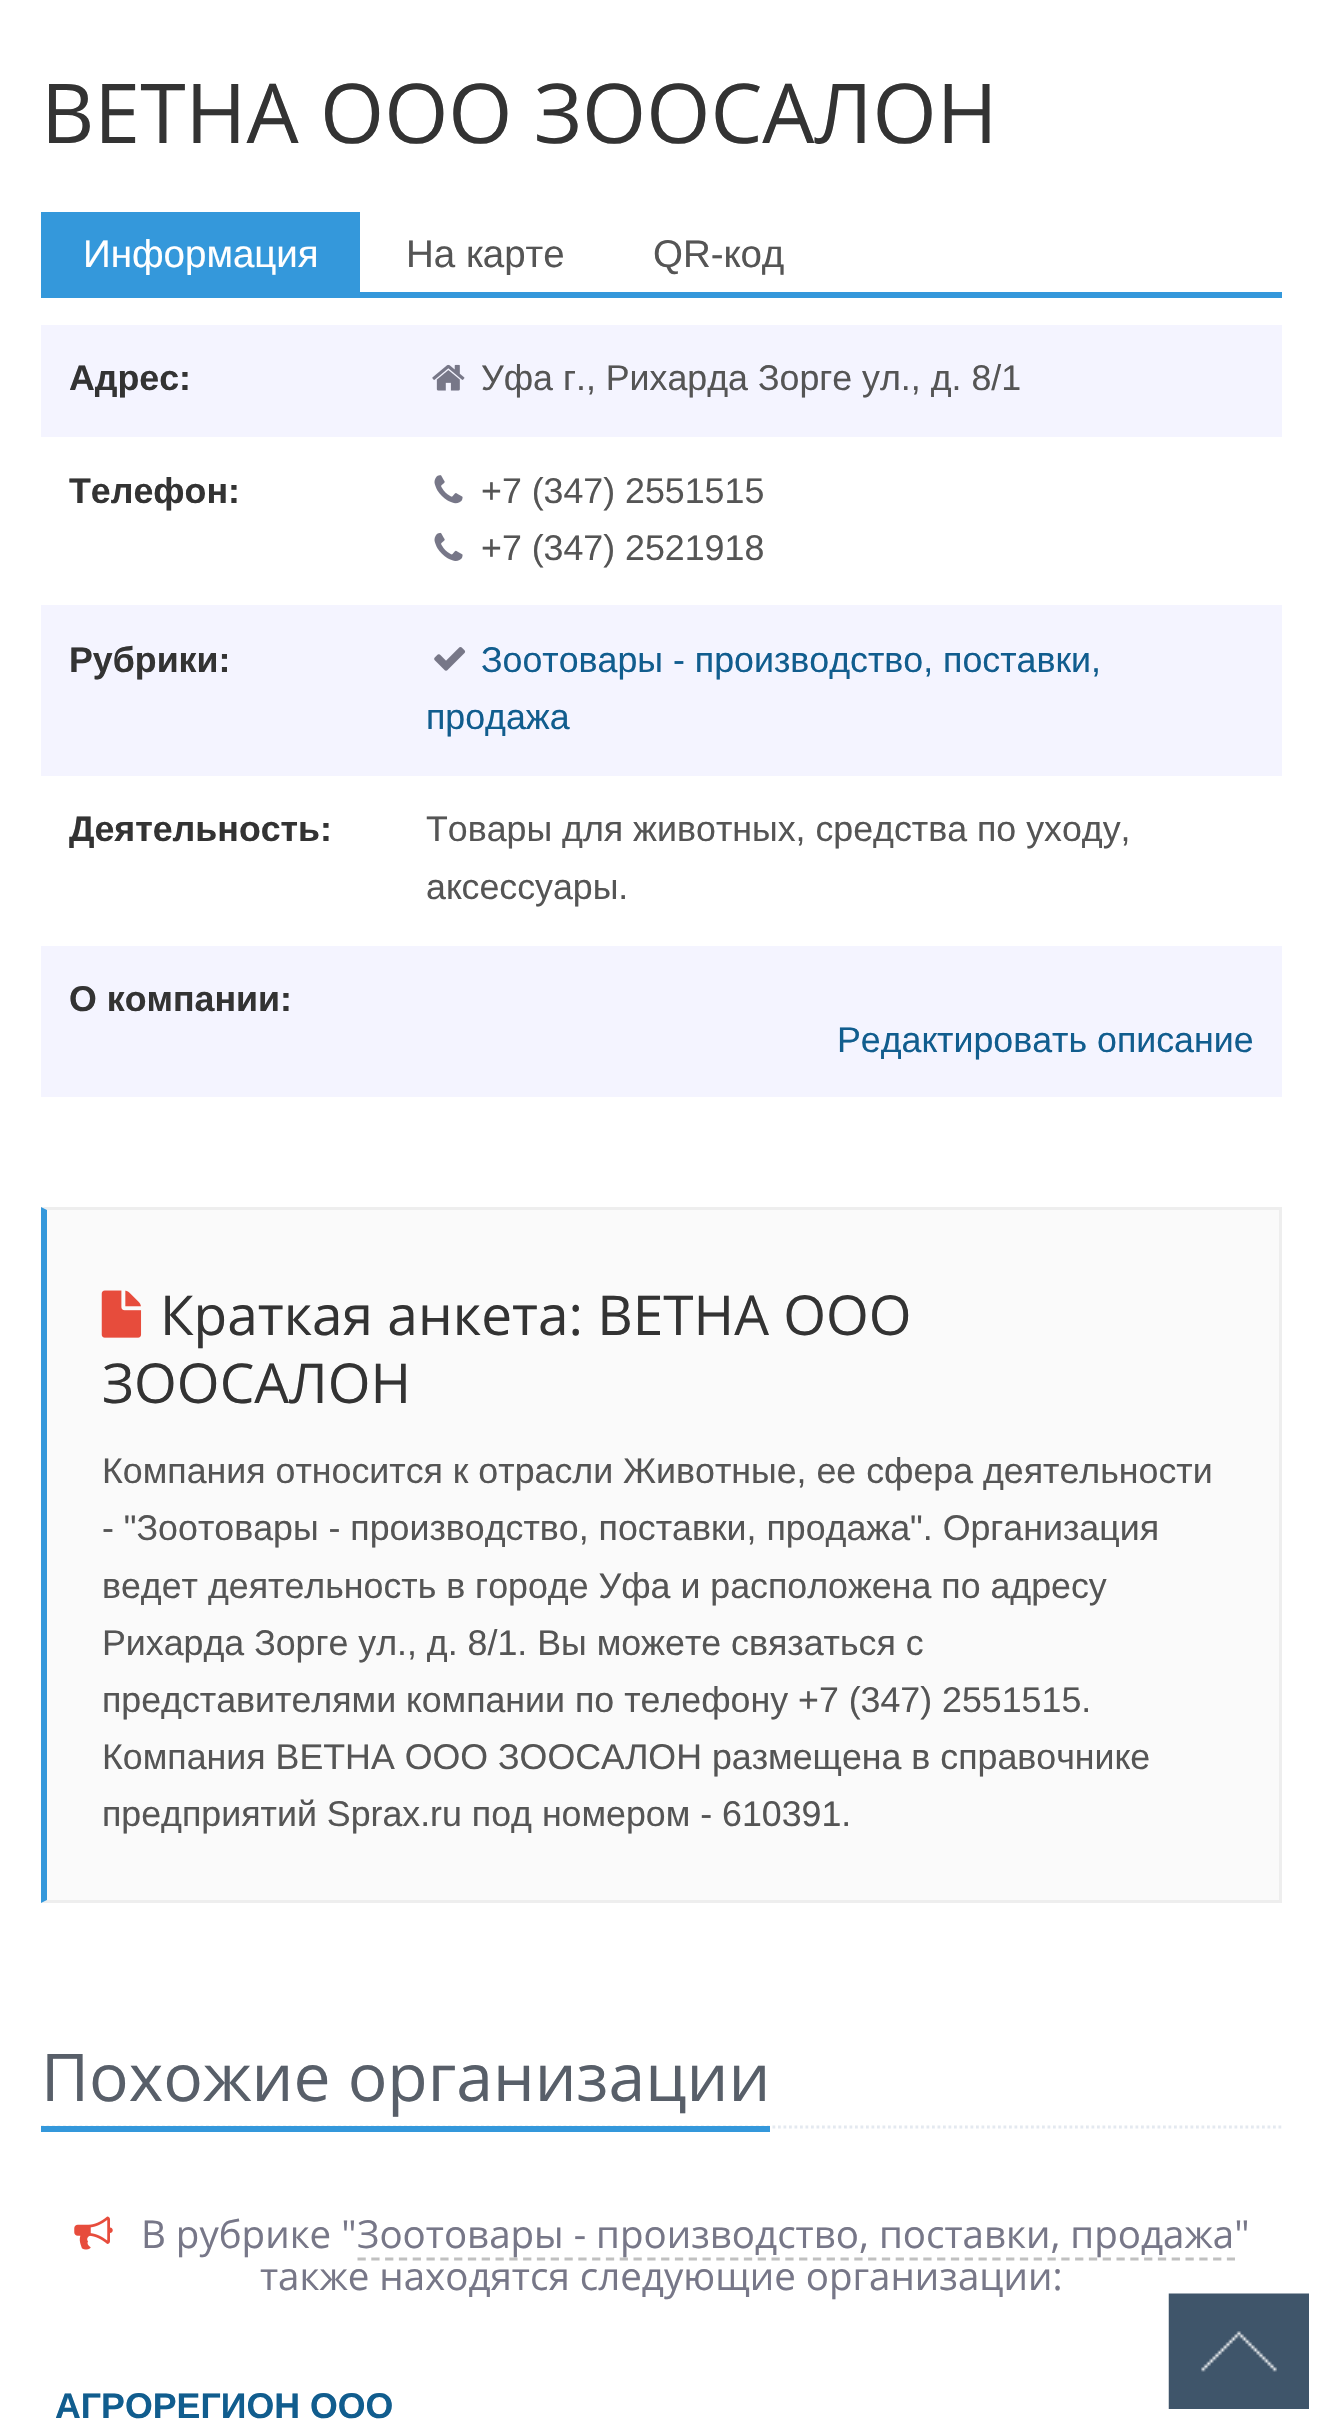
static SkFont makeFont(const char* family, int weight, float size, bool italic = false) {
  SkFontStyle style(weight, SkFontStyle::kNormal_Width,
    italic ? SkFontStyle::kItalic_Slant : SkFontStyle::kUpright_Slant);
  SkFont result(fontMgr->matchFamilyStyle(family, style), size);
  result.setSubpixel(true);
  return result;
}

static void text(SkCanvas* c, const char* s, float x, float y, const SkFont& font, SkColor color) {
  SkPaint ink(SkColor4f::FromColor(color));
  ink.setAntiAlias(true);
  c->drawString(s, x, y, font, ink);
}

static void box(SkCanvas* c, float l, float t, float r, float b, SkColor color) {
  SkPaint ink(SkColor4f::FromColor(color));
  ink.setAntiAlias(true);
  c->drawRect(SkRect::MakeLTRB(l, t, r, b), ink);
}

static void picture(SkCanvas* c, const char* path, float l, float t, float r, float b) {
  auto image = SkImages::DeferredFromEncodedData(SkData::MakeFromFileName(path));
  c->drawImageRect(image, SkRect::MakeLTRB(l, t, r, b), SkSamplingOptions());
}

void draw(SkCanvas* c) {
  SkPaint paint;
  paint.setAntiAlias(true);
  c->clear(0xffffffff);
  SkFont face1 = makeFont("Open Sans", 400, 82.5f);
  text(c, "ВЕТНА ООО ЗООСАЛОН", 41, 143, face1, 0xff333333);
  box(c, 41, 292, 1282, 298, 0xff3498db);
  box(c, 41, 212, 360, 292, 0xff3498db);
  SkFont face2 = makeFont("Liberation Sans", 400, 38.5f);
  text(c, "Информация", 83, 267, face2, 0xffffffff);
  text(c, "На карте", 406, 267, face2, 0xff555555);
  text(c, "QR-код", 653, 267, face2, 0xff555555);
  box(c, 41, 325, 1282, 437, 0xfff4f4ff);
  SkFont face3 = makeFont("Liberation Sans", 700, 35.75f);
  text(c, "Адрес:", 69, 390, face3, 0xff333333);
  picture(c, "img_01.png", 432, 364, 465, 391);
  SkFont face4 = makeFont("Liberation Sans", 400, 35.75f);
  text(c, "Уфа г., Рихарда Зорге ул., д. 8/1", 481, 390, face4, 0xff555555);
  text(c, "Телефон:", 69, 503, face3, 0xff333333);
  picture(c, "img_02.png", 434, 475, 463, 504);
  text(c, "+7 (347) 2551515", 481, 503, face4, 0xff555555);
  picture(c, "img_03.png", 434, 532, 463, 561);
  text(c, "+7 (347) 2521918", 481, 560, face4, 0xff555555);
  box(c, 41, 605, 1282, 776, 0xfff4f4ff);
  text(c, "Рубрики:", 69, 672, face3, 0xff333333);
  picture(c, "img_04.png", 434, 647, 466, 671);
  text(c, "Зоотовары - производство, поставки,", 481, 672, face4, 0xff115d8e);
  text(c, "продажа", 426, 729, face4, 0xff115d8e);
  text(c, "Деятельность:", 69, 841, face3, 0xff333333);
  text(c, "Товары для животных, средства по уходу,", 426, 841, face4, 0xff555555);
  text(c, "аксессуары.", 426, 899, face4, 0xff555555);
  box(c, 41, 946, 1282, 1097, 0xfff4f4ff);
  text(c, "О компании:", 69, 1011, face3, 0xff333333);
  text(c, "Редактировать описание", 837, 1052, face4, 0xff115d8e);
  box(c, 47, 1210, 1279, 1900, 0xfffafafa);
  paint.setColor(0xffeeeeee);
  c->drawPath(SkPathBuilder().moveTo(41, 1207).lineTo(1282, 1207).lineTo(1279, 1210).lineTo(47, 1210).close().detach(), paint);
  box(c, 1279, 1207, 1282, 1903, 0xffeeeeee);
  c->drawPath(SkPathBuilder().moveTo(1282, 1903).lineTo(41, 1903).lineTo(47, 1900).lineTo(1279, 1900).close().detach(), paint);
  paint.setColor(0xff3498db);
  c->drawPath(SkPathBuilder().moveTo(41, 1903).lineTo(41, 1207).lineTo(47, 1210).lineTo(47, 1900).close().detach(), paint);
  picture(c, "img_05.png", 101, 1290, 142, 1338);
  SkFont face5 = makeFont("Open Sans", 400, 55);
  text(c, "Краткая анкета: ВЕТНА ООО", 160, 1335, face5, 0xff333333);
  text(c, "ЗООСАЛОН", 102, 1403, face5, 0xff333333);
  text(c, "Компания относится к отрасли Животные, ее сфера деятельности", 102, 1483, face4, 0xff555555);
  text(c, "- \"Зоотовары - производство, поставки, продажа\". Организация", 102, 1540, face4, 0xff555555);
  text(c, "ведет деятельность в городе Уфа и расположена по адресу", 102, 1598, face4, 0xff555555);
  text(c, "Рихарда Зорге ул., д. 8/1. Вы можете связаться с", 102, 1655, face4, 0xff555555);
  text(c, "представителями компании по телефону +7 (347) 2551515.", 102, 1712, face4, 0xff555555);
  text(c, "Компания ВЕТНА ООО ЗООСАЛОН размещена в справочнике", 102, 1769, face4, 0xff555555);
  text(c, "предприятий Sprax.ru под номером - 610391.", 102, 1826, face4, 0xff555555);
  paint.setStyle(SkPaint::kStroke_Style);
  paint.setStrokeWidth(2.8f);
  paint.setColor(0xffe4e9f0);
  paint.setPathEffect(SkDashPathEffect::Make({{2.75f, 2.75f}}, 0));
  c->drawPath(SkPathBuilder().moveTo(41, 2127).lineTo(1281.5f, 2127).detach(), paint);
  paint.setPathEffect(nullptr);
  box(c, 41, 2126, 770, 2132, 0xff3498db);
  SkFont face6 = makeFont("Open Sans", 400, 66);
  text(c, "Похожие организации", 41, 2101, face6, 0xff585f69);
  picture(c, "img_06.png", 74, 2216, 113, 2250);
  SkFont face7 = makeFont("Open Sans", 400, 38.5f);
  text(c, "В рубрике \"", 141, 2248, face7, 0xff777788);
  paint.setColor(0xffc0c0c0);
  paint.setPathEffect(SkDashPathEffect::Make({{8.25f, 5.55f}}, 0));
  c->drawPath(SkPathBuilder().moveTo(357.5f, 2259).lineTo(1235, 2259).detach(), paint);
  paint.setPathEffect(nullptr);
  text(c, "Зоотовары - производство, поставки, продажа\"", 357, 2248, face7, 0xff777788);
  text(c, "также находятся следующие организации:", 260, 2290, face7, 0xff777788);
  text(c, "АГРОРЕГИОН ООО", 55, 2418, face3, 0xff115d8e);
  picture(c, "img_07.png", 1168, 2293, 1309, 2409);
}
